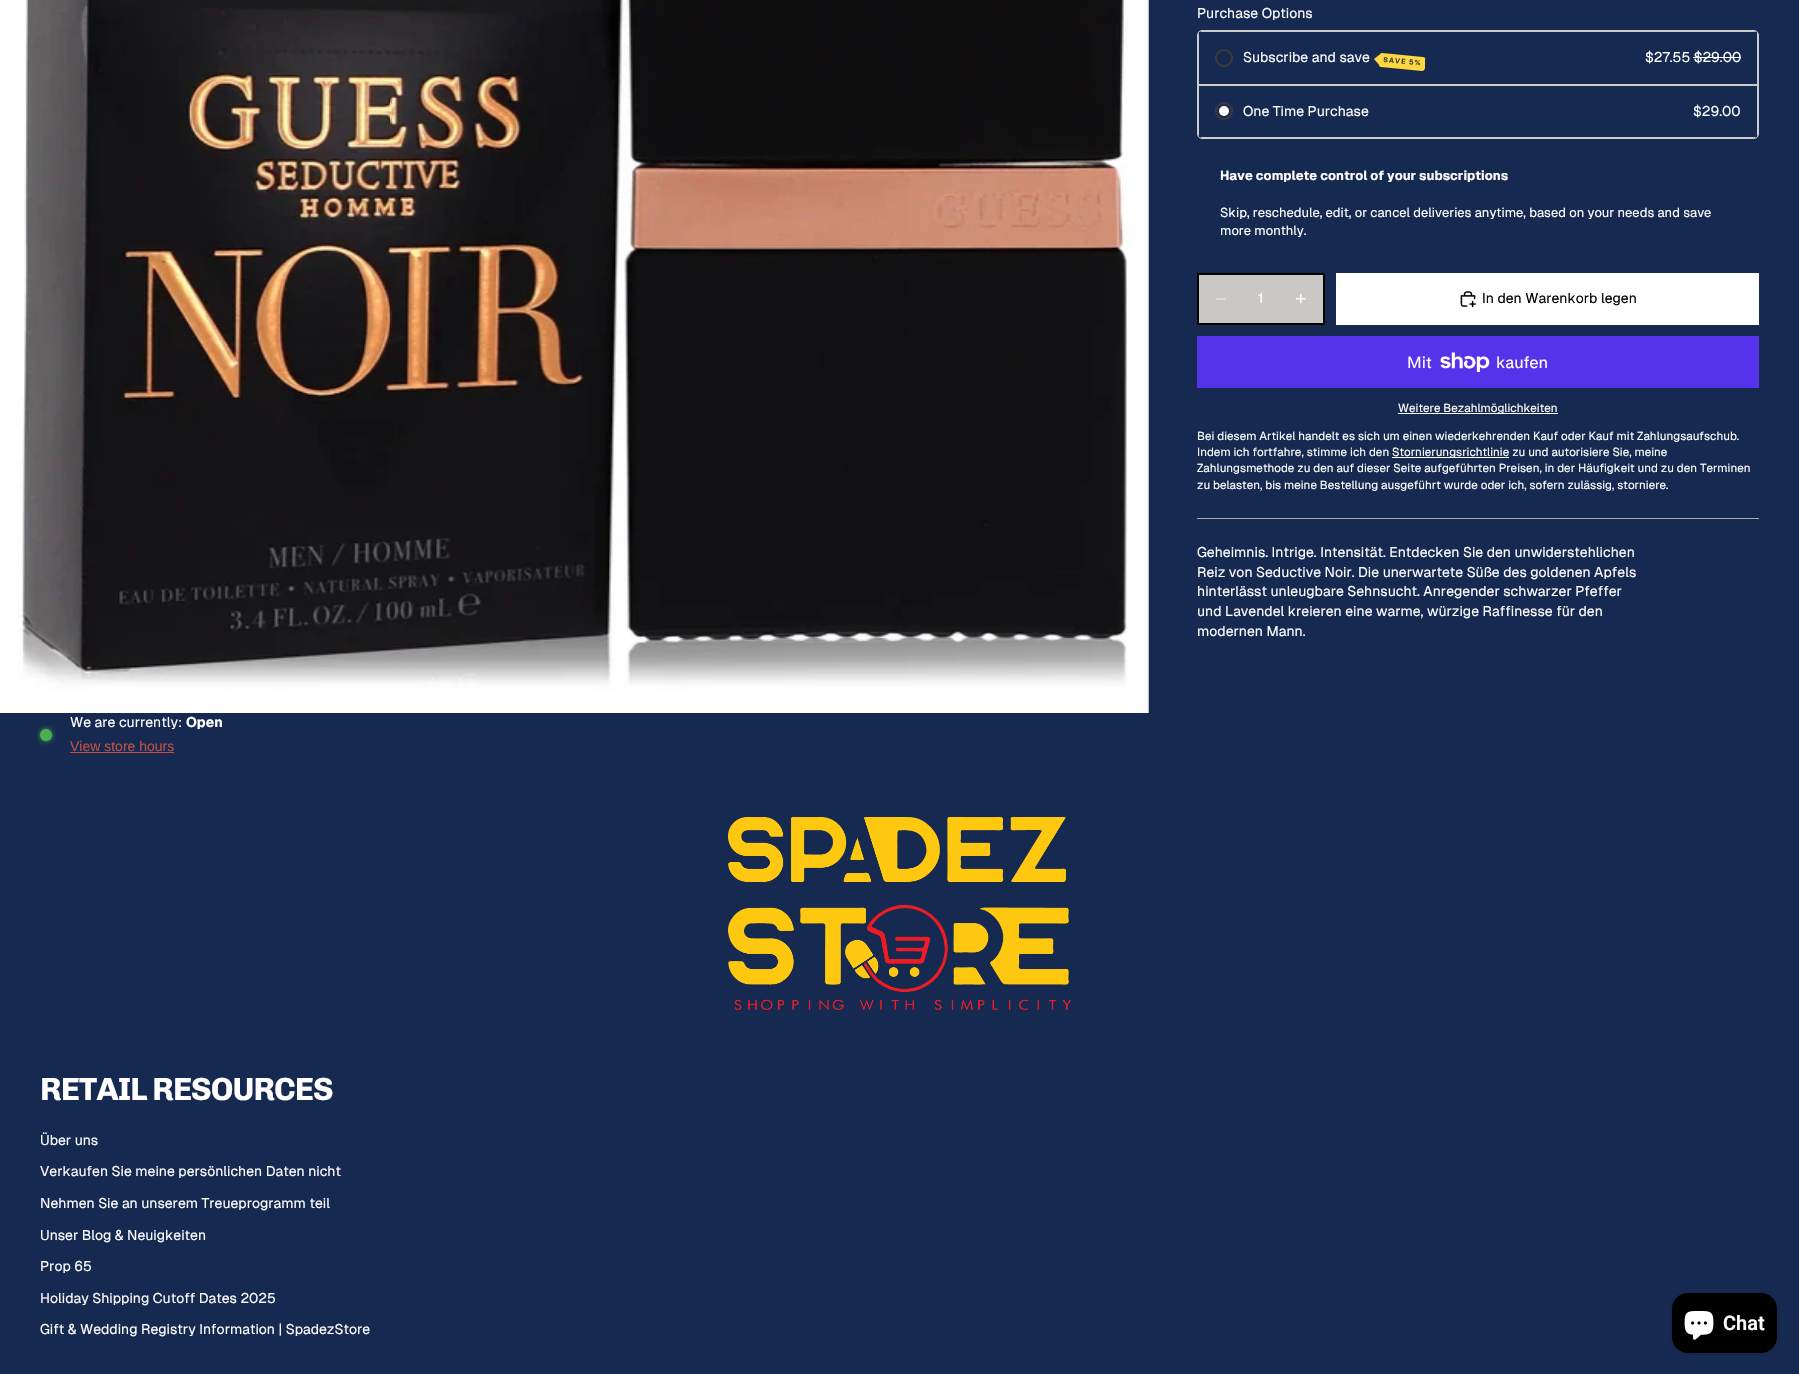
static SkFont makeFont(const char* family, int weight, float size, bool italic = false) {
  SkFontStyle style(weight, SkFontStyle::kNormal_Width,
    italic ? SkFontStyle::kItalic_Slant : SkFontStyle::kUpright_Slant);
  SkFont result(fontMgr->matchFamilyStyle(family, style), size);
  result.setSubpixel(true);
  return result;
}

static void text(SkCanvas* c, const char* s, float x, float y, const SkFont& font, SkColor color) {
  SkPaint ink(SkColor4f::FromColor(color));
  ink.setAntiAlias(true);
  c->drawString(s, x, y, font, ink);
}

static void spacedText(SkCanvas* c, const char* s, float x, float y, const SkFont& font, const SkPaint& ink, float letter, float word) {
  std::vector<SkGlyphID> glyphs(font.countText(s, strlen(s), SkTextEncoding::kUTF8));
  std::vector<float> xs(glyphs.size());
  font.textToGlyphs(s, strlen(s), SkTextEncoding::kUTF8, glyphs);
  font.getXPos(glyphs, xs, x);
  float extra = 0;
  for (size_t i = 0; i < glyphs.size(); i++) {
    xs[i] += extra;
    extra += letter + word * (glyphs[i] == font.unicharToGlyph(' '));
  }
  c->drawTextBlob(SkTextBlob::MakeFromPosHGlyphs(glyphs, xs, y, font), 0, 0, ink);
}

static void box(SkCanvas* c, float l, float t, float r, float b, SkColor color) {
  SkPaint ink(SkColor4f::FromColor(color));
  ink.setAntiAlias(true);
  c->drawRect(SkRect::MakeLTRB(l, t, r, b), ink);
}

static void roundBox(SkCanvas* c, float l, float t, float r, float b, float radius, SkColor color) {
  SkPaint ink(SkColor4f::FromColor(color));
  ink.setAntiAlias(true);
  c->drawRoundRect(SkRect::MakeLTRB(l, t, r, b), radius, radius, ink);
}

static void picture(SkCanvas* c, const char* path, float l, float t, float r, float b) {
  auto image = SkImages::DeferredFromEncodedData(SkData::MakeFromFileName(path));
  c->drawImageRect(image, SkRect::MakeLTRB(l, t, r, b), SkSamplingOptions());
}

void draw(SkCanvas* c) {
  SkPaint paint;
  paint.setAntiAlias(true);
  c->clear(0xff162950);
  picture(c, "img_01.png", 0, 0, 1149, 713);
  SkFont face1 = makeFont("Geist", 400, 14);
  text(c, "Purchase Options", 1197, 18, face1, 0xffffffff);
  paint.setStyle(SkPaint::kStroke_Style);
  paint.setStrokeWidth(1);
  paint.setColor(0xffcccccc);
  c->drawRoundRect(SkRect::MakeLTRB(1197.5f, 30.5f, 1758.5f, 138.5f), 4.5f, 4.5f, paint);
  paint.setStyle(SkPaint::kFill_Style);
  c->drawPath(SkPathBuilder(SkPathFillType::kEvenOdd).moveTo(1198, 35).lineTo(1198, 85).lineTo(1758, 85).lineTo(1758, 35).cubicTo(1758, 34, 1758, 33, 1757, 32).lineTo(1757, 84).lineTo(1199, 84).lineTo(1199, 32).close().moveTo(1202, 31).lineTo(1199, 32).lineTo(1757, 32).lineTo(1754, 31).close().detach(), paint);
  paint.setStyle(SkPaint::kStroke_Style);
  paint.setStrokeWidth(2);
  paint.setColor(0xff3a3a3a);
  c->drawCircle(1224, 58, 8, paint);
  text(c, "Subscribe and save", 1243, 62, face1, 0xffffffff);
  paint.setStyle(SkPaint::kFill_Style);
  paint.setColor(0xfffed83f);
  c->drawPath(SkPathBuilder().moveTo(1382, 53).lineTo(1423, 57).cubicTo(1424, 57, 1426, 58, 1425, 60).lineTo(1425, 68).cubicTo(1425, 70, 1423, 71, 1422, 71).lineTo(1381, 67).cubicTo(1380, 67, 1379, 66, 1379, 65).lineTo(1380, 55).cubicTo(1380, 54, 1381, 53, 1382, 53).close().detach(), paint);
  c->drawPath(SkPathBuilder().moveTo(1374, 59).lineTo(1381.5f, 53).lineTo(1380.5f, 66.5f).close().detach(), paint);
  SkFont face2 = makeFont("Geist", 700, 7);
  paint.setColor(0xff3b3b3b);
  c->save();
  c->rotate(5, 1383, 62);
  spacedText(c, "SAVE 5%", 1383, 62, face2, paint, 1, 0);
  c->restore();
  text(c, "$27.55 $29.00", 1645, 62, face1, 0xffffffff);
  box(c, 1693, 57, 1741, 58, 0xffffffff);
  paint.setColor(0xff162950);
  c->drawPath(SkPathBuilder().moveTo(1198, 85).lineTo(1758, 85).lineTo(1758, 134).cubicTo(1758, 136, 1756, 138, 1754, 138).lineTo(1202, 138).cubicTo(1200, 138, 1198, 136, 1198, 134).close().detach(), paint);
  paint.setColor(0xffcccccc);
  c->drawPath(SkPathBuilder(SkPathFillType::kEvenOdd).moveTo(1199, 86).lineTo(1757, 86).lineTo(1757, 137).cubicTo(1758, 136, 1758, 135, 1758, 134).lineTo(1758, 85).lineTo(1198, 85).lineTo(1198, 134).cubicTo(1198, 135, 1198, 136, 1199, 137).close().moveTo(1754, 138).lineTo(1757, 137).lineTo(1199, 137).lineTo(1202, 138).close().detach(), paint);
  paint.setStyle(SkPaint::kStroke_Style);
  paint.setColor(0xff3a3a3a);
  c->drawCircle(1224, 111, 8, paint);
  paint.setStyle(SkPaint::kFill_Style);
  paint.setColor(0xffffffff);
  c->drawCircle(1224, 111, 5, paint);
  text(c, "One Time Purchase", 1243, 116, face1, 0xffffffff);
  text(c, "$29.00", 1693, 116, face1, 0xffffffff);
  SkFont face3 = makeFont("Geist", 700, 13);
  text(c, "Have complete control of your subscriptions", 1220, 180, face3, 0xffffffff);
  SkFont face4 = makeFont("Geist", 400, 13);
  text(c, "Skip, reschedule, edit, or cancel deliveries anytime, based on your needs and save", 1220, 217, face4, 0xffffffff);
  text(c, "more monthly.", 1220, 235, face4, 0xffffffff);
  paint.setColor(0xffcac8c6);
  c->drawRect(SkRect::MakeLTRB(1198, 274, 1324, 324), paint);
  paint.setStyle(SkPaint::kStroke_Style);
  paint.setColor(0xff000000);
  c->drawRect(SkRect::MakeLTRB(1198, 274, 1324, 324), paint);
  paint.setStrokeWidth(1.5f);
  paint.setStrokeCap(SkPaint::kRound_Cap);
  paint.setColor(0xffe5e4e3);
  c->drawPath(SkPathBuilder().moveTo(1216.5f, 299).lineTo(1225, 299).detach(), paint);
  text(c, "1", 1258, 303, face1, 0xffffffff);
  picture(c, "img_02.png", 1296, 294, 1306, 304);
  box(c, 1336, 273, 1759, 325, 0xffffffff);
  picture(c, "img_03.png", 1460, 291, 1476, 308);
  text(c, "In den Warenkorb legen", 1482, 303, face1, 0xff000000);
  box(c, 1197, 336, 1759, 388, 0xff5433eb);
  SkFont face5 = makeFont("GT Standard", 400, 16);
  text(c, "Mit", 1407, 368, face5, 0xffffffff);
  picture(c, "img_04.png", 1440, 352, 1490, 372);
  text(c, "kaufen", 1496, 368, face5, 0xffffffff);
  box(c, 1398, 413, 1558, 414, 0xffffffff);
  SkFont face6 = makeFont("Geist", 400, 11.65f);
  text(c, "Weitere Bezahlmöglichkeiten", 1398, 412, face6, 0xffffffff);
  text(c, "Bei diesem Artikel handelt es sich um einen wiederkehrenden Kauf oder Kauf mit Zahlungsaufschub.", 1197, 440, face6, 0xffffffff);
  text(c, "Indem ich fortfahre, stimme ich den", 1197, 456, face6, 0xffffffff);
  box(c, 1392, 457, 1509, 458, 0xffffffff);
  text(c, "Stornierungsrichtlinie zu und autorisiere Sie, meine", 1392, 456, face6, 0xffffffff);
  text(c, "Zahlungsmethode zu den auf dieser Seite aufgeführten Preisen, in der Häufigkeit und zu den Terminen", 1197, 472, face6, 0xffffffff);
  text(c, "zu belasten, bis meine Bestellung ausgeführt wurde oder ich, sofern zulässig, storniere.", 1197, 489, face6, 0xffffffff);
  box(c, 1197, 518, 1759, 519, 0xffababab);
  text(c, "Geheimnis. Intrige. Intensität. Entdecken Sie den unwiderstehlichen", 1197, 557, face1, 0xffffffff);
  text(c, "Reiz von Seductive Noir. Die unerwartete Süße des goldenen Apfels", 1197, 577, face1, 0xffffffff);
  text(c, "hinterlässt unleugbare Sehnsucht. Anregender schwarzer Pfeffer", 1197, 596, face1, 0xffffffff);
  text(c, "und Lavendel kreieren eine warme, würzige Raffinesse für den", 1197, 616, face1, 0xffffffff);
  text(c, "modernen Mann.", 1197, 636, face1, 0xffffffff);
  paint.setStyle(SkPaint::kFill_Style);
  paint.setColor(0xff4caf50);
  paint.setMaskFilter(SkMaskFilter::MakeBlur(kNormal_SkBlurStyle, 2.5f));
  c->drawRoundRect(SkRect::MakeLTRB(40, 729, 52, 741), 6, 6, paint);
  paint.setMaskFilter(nullptr);
  c->drawCircle(46, 735, 6, paint);
  text(c, "We are currently:", 70, 727, face1, 0xffffffff);
  SkFont face7 = makeFont("Geist", 700, 14);
  text(c, "Open", 186, 727, face7, 0xffffffff);
  SkFont face8 = makeFont("Liberation Sans", 400, 14);
  text(c, "View store hours", 70, 751, face8, 0xffc15045);
  box(c, 70, 752, 174, 753, 0xffc15045);
  picture(c, "img_05.png", 728, 817, 1071, 1010);
  SkFont face9 = makeFont("Chivo", 700, 32);
  paint.setColor(0xffffffff);
  spacedText(c, "RETAIL RESOURCES", 40, 1100, face9, paint, -1, 0);
  text(c, "Über uns", 40, 1145, face1, 0xffffffff);
  text(c, "Verkaufen Sie meine persönlichen Daten nicht", 40, 1176, face1, 0xffffffff);
  text(c, "Nehmen Sie an unserem Treueprogramm teil", 40, 1208, face1, 0xffffffff);
  text(c, "Unser Blog & Neuigkeiten", 40, 1240, face1, 0xffffffff);
  text(c, "Prop 65", 40, 1271, face1, 0xffffffff);
  text(c, "Holiday Shipping Cutoff Dates 2025", 40, 1303, face1, 0xffffffff);
  text(c, "Gift & Wedding Registry Information | SpadezStore", 40, 1334, face1, 0xffffffff);
  paint.setColor(0x26000000);
  paint.setMaskFilter(SkMaskFilter::MakeBlur(kNormal_SkBlurStyle, 2.5f));
  c->drawRoundRect(SkRect::MakeLTRB(1672, 1293, 1777, 1353), 16, 16, paint);
  paint.setMaskFilter(nullptr);
  roundBox(c, 1672, 1293, 1777, 1353, 16, 0xff000000);
  picture(c, "img_06.png", 1684, 1311, 1714, 1340);
  SkFont face10 = makeFont("Roboto", 600, 20);
  text(c, "Chat", 1723, 1330, face10, 0xffffffff);
}
